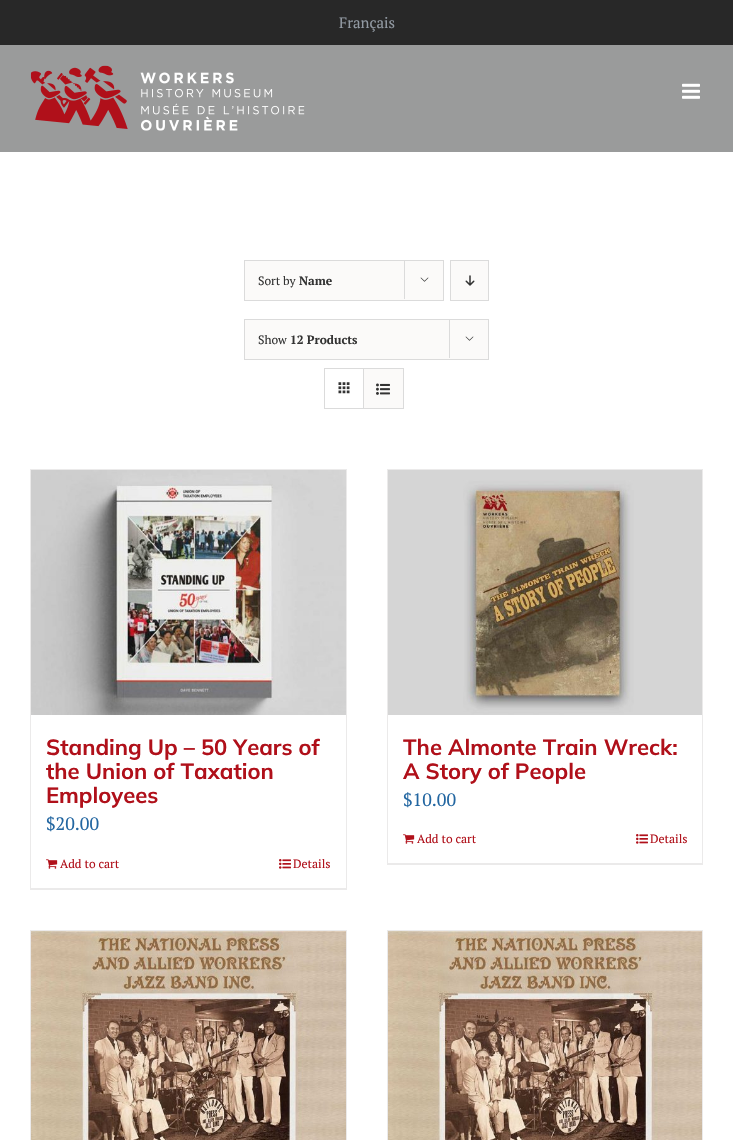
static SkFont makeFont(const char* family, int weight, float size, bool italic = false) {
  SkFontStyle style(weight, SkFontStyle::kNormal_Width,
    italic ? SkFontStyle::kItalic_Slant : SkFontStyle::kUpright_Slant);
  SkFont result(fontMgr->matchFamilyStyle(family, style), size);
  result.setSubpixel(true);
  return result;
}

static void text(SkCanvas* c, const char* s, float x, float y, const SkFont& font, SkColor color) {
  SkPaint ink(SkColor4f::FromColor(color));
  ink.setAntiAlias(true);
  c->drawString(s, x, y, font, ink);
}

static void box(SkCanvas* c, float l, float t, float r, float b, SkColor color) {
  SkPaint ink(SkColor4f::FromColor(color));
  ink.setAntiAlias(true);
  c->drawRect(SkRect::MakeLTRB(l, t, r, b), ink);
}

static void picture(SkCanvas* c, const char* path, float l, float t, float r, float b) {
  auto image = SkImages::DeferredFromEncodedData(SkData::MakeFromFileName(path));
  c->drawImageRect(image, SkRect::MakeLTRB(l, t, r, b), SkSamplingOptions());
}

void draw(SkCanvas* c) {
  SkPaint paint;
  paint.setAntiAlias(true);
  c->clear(0xffffffff);
  box(c, 0, 0, 733, 45, 0xff282828);
  SkFont face1 = makeFont("PT Serif", 400, 15);
  text(c, "Français", 339, 28, face1, 0xff929aa3);
  box(c, 0, 45, 733, 152, 0xff9a9b9b);
  picture(c, "img_01.png", 30, 65, 305, 131);
  picture(c, "img_02.png", 682, 83, 700, 99);
  paint.setColor(0xfffbfaf9);
  c->drawRect(SkRect::MakeLTRB(244.5f, 260.5f, 443.5f, 300.5f), paint);
  paint.setStyle(SkPaint::kStroke_Style);
  paint.setStrokeWidth(1);
  paint.setColor(0xffdbdbdb);
  c->drawRect(SkRect::MakeLTRB(244.5f, 260.5f, 443.5f, 300.5f), paint);
  SkFont face2 = makeFont("PT Serif", 400, 12);
  text(c, "Sort by", 258, 285, face2, 0xff333333);
  SkFont face3 = makeFont("PT Serif", 700, 12);
  text(c, "Name", 299, 285, face3, 0xff333333);
  box(c, 404, 260, 405, 299, 0xffdbdbdb);
  picture(c, "img_03.png", 420, 277, 429, 282);
  paint.setStyle(SkPaint::kFill_Style);
  paint.setColor(0xfffbfaf9);
  c->drawRect(SkRect::MakeLTRB(450.5f, 260.5f, 488.5f, 300.5f), paint);
  paint.setStyle(SkPaint::kStroke_Style);
  paint.setColor(0xffdbdbdb);
  c->drawRect(SkRect::MakeLTRB(450.5f, 260.5f, 488.5f, 300.5f), paint);
  picture(c, "img_04.png", 465, 275, 475, 286);
  paint.setStyle(SkPaint::kFill_Style);
  paint.setColor(0xfffbfaf9);
  c->drawRect(SkRect::MakeLTRB(244.5f, 319.5f, 488.5f, 359.5f), paint);
  paint.setStyle(SkPaint::kStroke_Style);
  paint.setColor(0xffdbdbdb);
  c->drawRect(SkRect::MakeLTRB(244.5f, 319.5f, 488.5f, 359.5f), paint);
  text(c, "Show", 258, 344, face2, 0xff333333);
  text(c, "12 Products", 290, 344, face3, 0xff333333);
  box(c, 449, 319, 450, 358, 0xffdbdbdb);
  picture(c, "img_03.png", 465, 336, 474, 341);
  c->drawRect(SkRect::MakeLTRB(324.5f, 368.5f, 403.5f, 408.5f), paint);
  box(c, 363, 369, 364, 408, 0xffdbdbdb);
  picture(c, "img_05.png", 338, 382, 350, 394);
  box(c, 364, 369, 403, 408, 0xfffbfaf9);
  picture(c, "img_06.png", 376, 383, 390, 395);
  box(c, 30, 469, 347, 470, 0xffebeaea);
  box(c, 346, 469, 347, 890, 0xffebeaea);
  box(c, 30, 888, 347, 890, 0xffebeaea);
  box(c, 30, 469, 31, 890, 0xffebeaea);
  picture(c, "img_07.png", 31, 470, 346, 715);
  SkFont face4 = makeFont("Mulish", 700, 22);
  text(c, "Standing Up – 50 Years of", 46, 755, face4, 0xffb0101a);
  text(c, "the Union of Taxation", 46, 779, face4, 0xffb0101a);
  text(c, "Employees", 46, 803, face4, 0xffb0101a);
  SkFont face5 = makeFont("PT Serif", 400, 18);
  text(c, "$20.00", 46, 830, face5, 0xff2266a1);
  picture(c, "img_08.png", 46, 859, 58, 869);
  text(c, "Add to cart", 60, 868, face2, 0xffb0101a);
  picture(c, "img_09.png", 279, 859, 291, 869);
  text(c, "Details", 293, 868, face2, 0xffb0101a);
  box(c, 387, 469, 703, 470, 0xffebeaea);
  box(c, 702, 469, 703, 865, 0xffebeaea);
  box(c, 387, 863, 703, 865, 0xffebeaea);
  box(c, 387, 469, 388, 865, 0xffebeaea);
  picture(c, "img_10.png", 388, 470, 702, 715);
  text(c, "The Almonte Train Wreck:", 403, 755, face4, 0xffb0101a);
  text(c, "A Story of People", 403, 779, face4, 0xffb0101a);
  text(c, "$10.00", 403, 806, face5, 0xff2266a1);
  picture(c, "img_08.png", 403, 834, 415, 844);
  text(c, "Add to cart", 417, 843, face2, 0xffb0101a);
  picture(c, "img_09.png", 636, 834, 648, 844);
  text(c, "Details", 650, 843, face2, 0xffb0101a);
  box(c, 30, 930, 347, 931, 0xffebeaea);
  box(c, 346, 930, 347, 1140, 0xffebeaea);
  box(c, 30, 930, 31, 1140, 0xffebeaea);
  picture(c, "img_11.png", 31, 931, 346, 1140);
  box(c, 387, 930, 703, 931, 0xffebeaea);
  box(c, 702, 930, 703, 1140, 0xffebeaea);
  box(c, 387, 930, 388, 1140, 0xffebeaea);
  picture(c, "img_12.png", 388, 931, 702, 1140);
}
